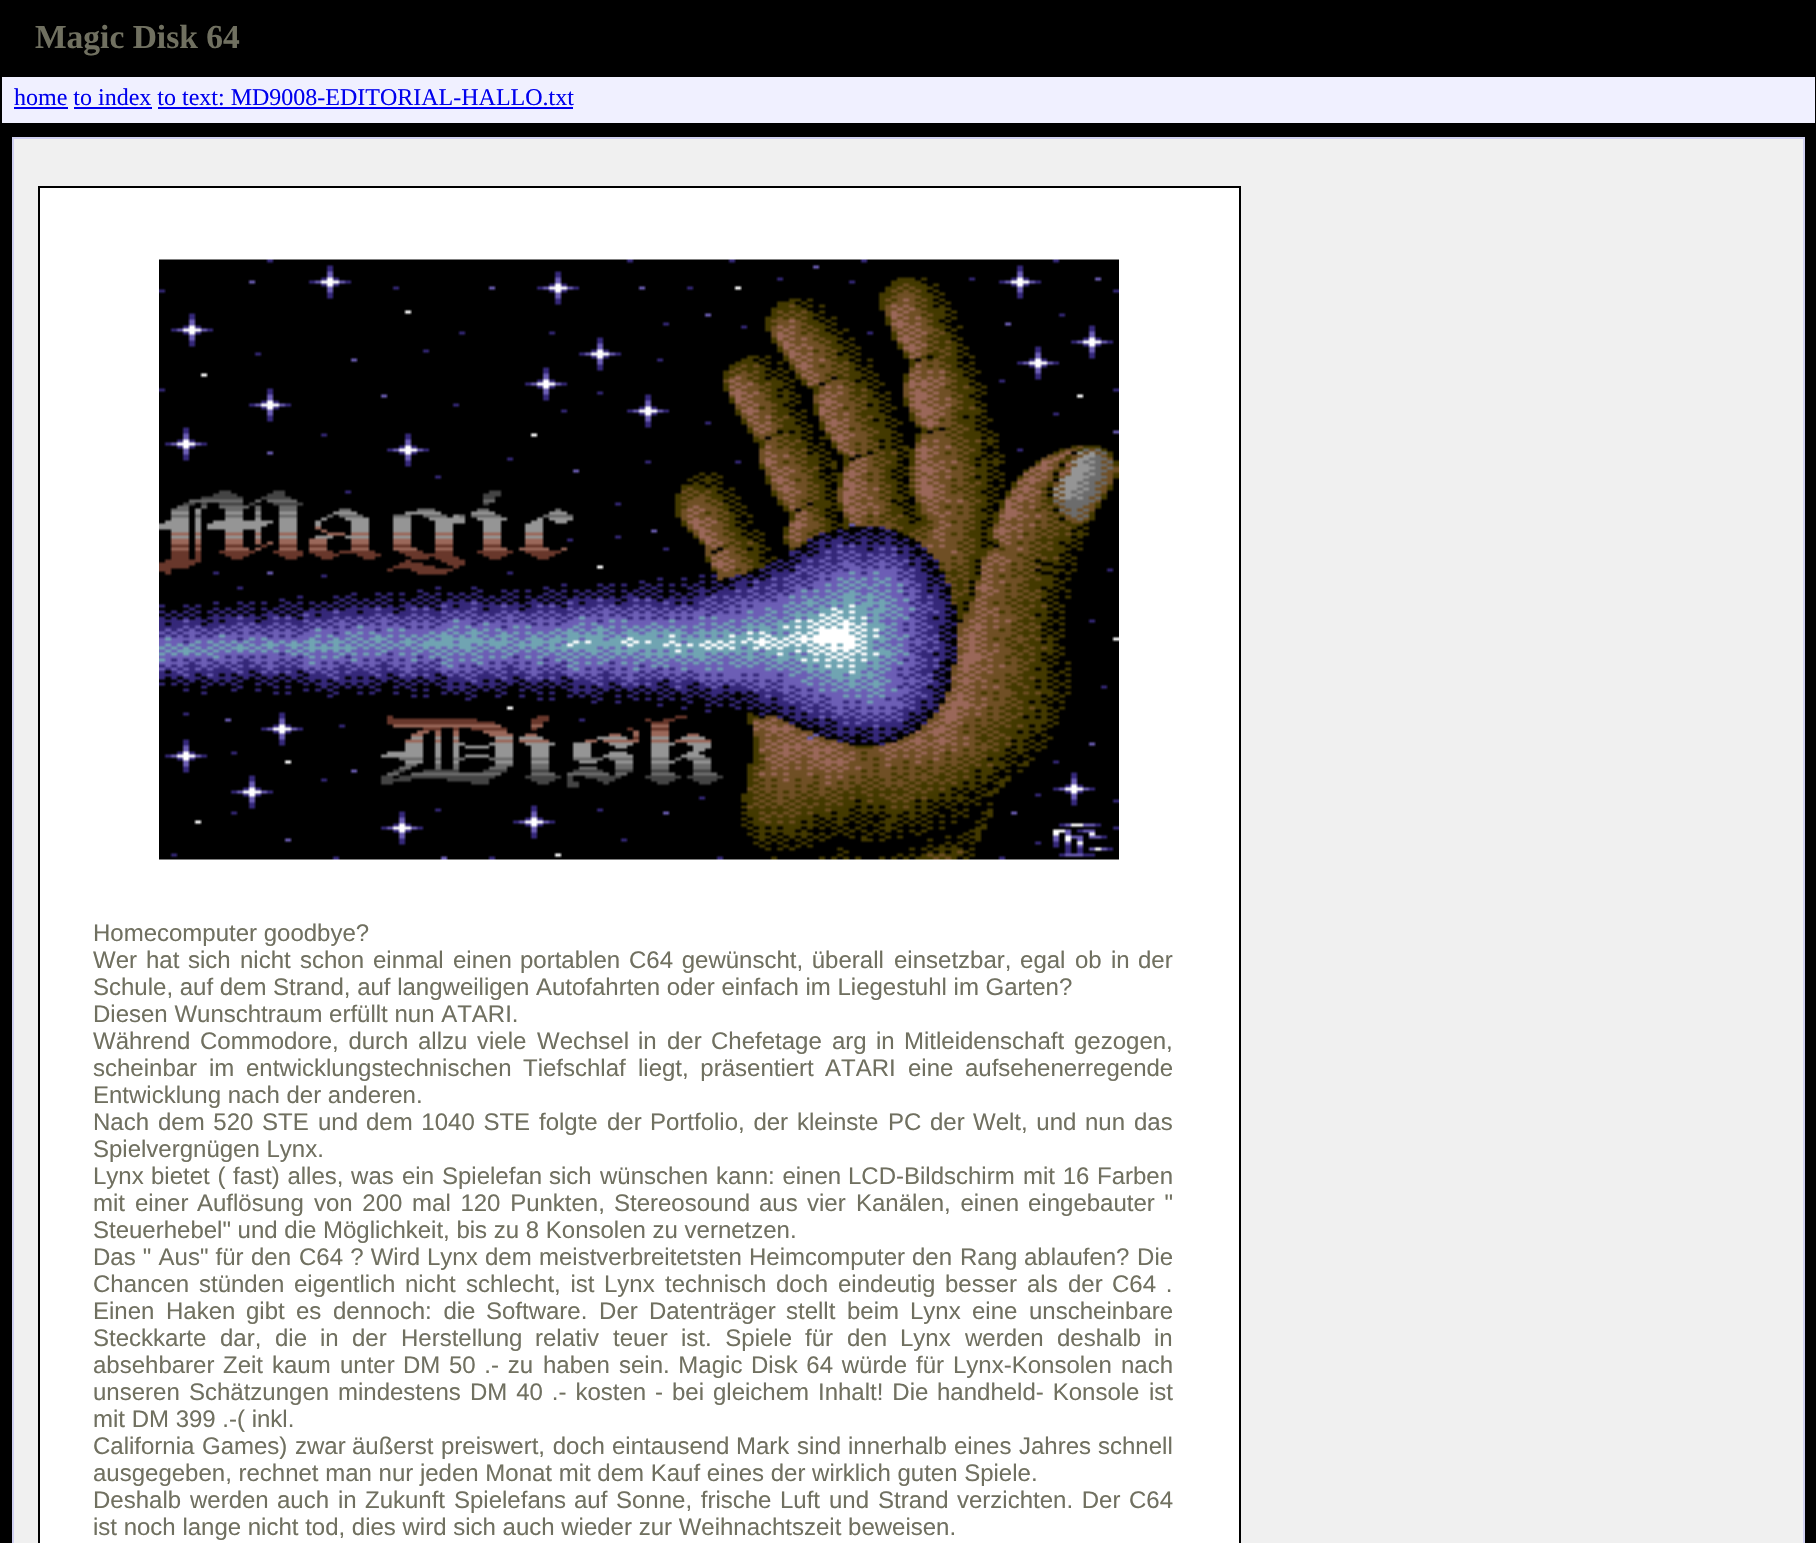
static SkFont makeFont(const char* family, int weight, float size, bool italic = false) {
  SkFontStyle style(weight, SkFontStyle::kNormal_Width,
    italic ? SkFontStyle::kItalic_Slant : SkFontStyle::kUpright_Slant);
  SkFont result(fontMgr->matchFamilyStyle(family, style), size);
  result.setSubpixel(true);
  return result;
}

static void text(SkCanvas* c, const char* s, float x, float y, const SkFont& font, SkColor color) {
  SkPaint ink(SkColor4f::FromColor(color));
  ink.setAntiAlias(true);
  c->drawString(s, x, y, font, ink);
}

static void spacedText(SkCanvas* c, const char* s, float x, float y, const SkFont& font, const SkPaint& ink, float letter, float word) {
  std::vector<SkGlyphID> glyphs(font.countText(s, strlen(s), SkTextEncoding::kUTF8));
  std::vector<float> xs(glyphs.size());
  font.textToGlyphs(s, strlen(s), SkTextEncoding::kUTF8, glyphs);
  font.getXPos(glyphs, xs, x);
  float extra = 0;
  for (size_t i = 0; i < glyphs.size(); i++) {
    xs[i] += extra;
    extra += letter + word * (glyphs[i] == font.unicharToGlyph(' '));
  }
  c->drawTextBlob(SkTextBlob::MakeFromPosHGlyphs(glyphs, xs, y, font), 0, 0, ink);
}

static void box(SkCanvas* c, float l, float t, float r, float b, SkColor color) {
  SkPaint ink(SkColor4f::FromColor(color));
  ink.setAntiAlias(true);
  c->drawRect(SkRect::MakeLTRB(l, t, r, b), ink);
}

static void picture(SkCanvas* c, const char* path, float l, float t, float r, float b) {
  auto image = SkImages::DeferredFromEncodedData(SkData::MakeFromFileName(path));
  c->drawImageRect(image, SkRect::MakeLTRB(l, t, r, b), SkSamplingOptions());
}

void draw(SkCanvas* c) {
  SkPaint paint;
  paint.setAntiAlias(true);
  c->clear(0xff000000);
  SkFont face1 = makeFont("Liberation Serif", 700, 33.5f);
  text(c, "Magic Disk 64", 35, 48, face1, 0xff707060);
  box(c, 2, 77, 1815, 123, 0xfff0f0ff);
  SkFont face2 = makeFont("Liberation Serif", 400, 24);
  text(c, "home to index to text: MD9008-EDITORIAL-HALLO.txt", 14, 105, face2, 0xff0000ee);
  box(c, 14, 107, 68, 109, 0xff0000ee);
  box(c, 74, 107, 152, 109, 0xff0000ee);
  box(c, 158, 107, 573, 109, 0xff0000ee);
  paint.setColor(0xfff0f0f0);
  c->drawRect(SkRect::MakeLTRB(13, 138, 1804, 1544), paint);
  paint.setStyle(SkPaint::kStroke_Style);
  paint.setStrokeWidth(2);
  paint.setColor(0xffd0d0f0);
  c->drawRect(SkRect::MakeLTRB(13, 138, 1804, 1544), paint);
  paint.setStyle(SkPaint::kFill_Style);
  paint.setColor(0xffffffff);
  c->drawRect(SkRect::MakeLTRB(39, 187, 1240, 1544), paint);
  paint.setStyle(SkPaint::kStroke_Style);
  paint.setColor(0xff000000);
  c->drawRect(SkRect::MakeLTRB(39, 187, 1240, 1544), paint);
  picture(c, "img_01.png", 159, 259, 1119, 860);
  SkFont face3 = makeFont("Liberation Sans", 400, 24);
  text(c, "Homecomputer goodbye?", 93, 941, face3, 0xff707060);
  text(c, "Wer", 93, 968, face3, 0xff707060);
  text(c, "hat", 146, 968, face3, 0xff707060);
  text(c, "sich", 188, 968, face3, 0xff707060);
  text(c, "nicht", 240, 968, face3, 0xff707060);
  text(c, "schon", 300, 968, face3, 0xff707060);
  text(c, "einmal", 373, 968, face3, 0xff707060);
  text(c, "einen", 453, 968, face3, 0xff707060);
  text(c, "portablen", 520, 968, face3, 0xff707060);
  paint.setStyle(SkPaint::kFill_Style);
  paint.setColor(0xff707060);
  spacedText(c, "C64 gewünscht, überall", 629, 968, face3, paint, 0, 2);
  spacedText(c, "einsetzbar, egal", 894, 968, face3, paint, 0, 2);
  text(c, "ob", 1075, 968, face3, 0xff707060);
  text(c, "in", 1111, 968, face3, 0xff707060);
  text(c, "der", 1138, 968, face3, 0xff707060);
  text(c, "Schule, auf dem Strand, auf langweiligen Autofahrten oder einfach im Liegestuhl im Garten?", 93, 995, face3, 0xff707060);
  text(c, "Diesen Wunschtraum erfüllt nun ATARI.", 93, 1022, face3, 0xff707060);
  text(c, "Während", 93, 1049, face3, 0xff707060);
  spacedText(c, "Commodore, durch", 200, 1049, face3, paint, 0, 3);
  text(c, "allzu", 418, 1049, face3, 0xff707060);
  text(c, "viele", 477, 1049, face3, 0xff707060);
  text(c, "Wechsel", 537, 1049, face3, 0xff707060);
  text(c, "in", 638, 1049, face3, 0xff707060);
  text(c, "der", 667, 1049, face3, 0xff707060);
  text(c, "Chefetage", 711, 1049, face3, 0xff707060);
  text(c, "arg", 832, 1049, face3, 0xff707060);
  text(c, "in", 876, 1049, face3, 0xff707060);
  text(c, "Mitleidenschaft", 904, 1049, face3, 0xff707060);
  text(c, "gezogen,", 1074, 1049, face3, 0xff707060);
  text(c, "scheinbar", 93, 1076, face3, 0xff707060);
  text(c, "im", 209, 1076, face3, 0xff707060);
  text(c, "entwicklungstechnischen", 246, 1076, face3, 0xff707060);
  text(c, "Tiefschlaf", 523, 1076, face3, 0xff707060);
  spacedText(c, "liegt, präsentiert", 638, 1076, face3, paint, 0, 5);
  text(c, "ATARI", 825, 1076, face3, 0xff707060);
  text(c, "eine", 908, 1076, face3, 0xff707060);
  text(c, "aufsehenerregende", 965, 1076, face3, 0xff707060);
  text(c, "Entwicklung nach der anderen.", 93, 1103, face3, 0xff707060);
  text(c, "Nach", 93, 1130, face3, 0xff707060);
  spacedText(c, "dem 520 STE", 158, 1130, face3, paint, 0, 2);
  text(c, "und", 318, 1130, face3, 0xff707060);
  spacedText(c, "dem 1040 STE", 366, 1130, face3, paint, 0, 2);
  text(c, "folgte", 539, 1130, face3, 0xff707060);
  text(c, "der", 607, 1130, face3, 0xff707060);
  spacedText(c, "Portfolio, der", 650, 1130, face3, paint, 0, 2);
  text(c, "kleinste", 797, 1130, face3, 0xff707060);
  text(c, "PC", 888, 1130, face3, 0xff707060);
  text(c, "der", 930, 1130, face3, 0xff707060);
  spacedText(c, "Welt, und", 973, 1130, face3, paint, 0, 2);
  text(c, "nun", 1085, 1130, face3, 0xff707060);
  text(c, "das", 1134, 1130, face3, 0xff707060);
  text(c, "Spielvergnügen Lynx.", 93, 1157, face3, 0xff707060);
  text(c, "Lynx", 93, 1184, face3, 0xff707060);
  spacedText(c, "bietet ( fast) alles, was", 151, 1184, face3, paint, 0, 1);
  text(c, "ein", 402, 1184, face3, 0xff707060);
  text(c, "Spielefan", 442, 1184, face3, 0xff707060);
  text(c, "sich", 549, 1184, face3, 0xff707060);
  text(c, "wünschen", 600, 1184, face3, 0xff707060);
  spacedText(c, "kann: einen", 716, 1184, face3, paint, 0, 1);
  text(c, "LCD-Bildschirm", 848, 1184, face3, 0xff707060);
  spacedText(c, "mit 16 Farben", 1023, 1184, face3, paint, 0, 1);
  text(c, "mit", 93, 1211, face3, 0xff707060);
  text(c, "einer", 135, 1211, face3, 0xff707060);
  text(c, "Auflösung", 197, 1211, face3, 0xff707060);
  spacedText(c, "von 200 mal 120 Punkten,", 314, 1211, face3, paint, 0, 3);
  text(c, "Stereosound", 614, 1211, face3, 0xff707060);
  text(c, "aus", 759, 1211, face3, 0xff707060);
  text(c, "vier", 807, 1211, face3, 0xff707060);
  spacedText(c, "Kanälen, einen", 856, 1211, face3, paint, 0, 3);
  spacedText(c, "eingebauter \"", 1028, 1211, face3, paint, 0, 3);
  text(c, "Steuerhebel\" und die Möglichkeit, bis zu 8 Konsolen zu vernetzen.", 93, 1238, face3, 0xff707060);
  spacedText(c, "Das \" Aus\" für", 93, 1265, face3, paint, 0, 0.5f);
  text(c, "den", 251, 1265, face3, 0xff707060);
  spacedText(c, "C64 ? Wird", 299, 1265, face3, paint, 0, 0.5f);
  text(c, "Lynx", 427, 1265, face3, 0xff707060);
  text(c, "dem", 485, 1265, face3, 0xff707060);
  text(c, "meistverbreitetsten", 539, 1265, face3, 0xff707060);
  text(c, "Heimcomputer", 749, 1265, face3, 0xff707060);
  text(c, "den", 912, 1265, face3, 0xff707060);
  text(c, "Rang", 960, 1265, face3, 0xff707060);
  spacedText(c, "ablaufen? Die", 1024, 1265, face3, paint, 0, 1);
  text(c, "Chancen", 93, 1292, face3, 0xff707060);
  text(c, "stünden", 199, 1292, face3, 0xff707060);
  text(c, "eigentlich", 294, 1292, face3, 0xff707060);
  text(c, "nicht", 405, 1292, face3, 0xff707060);
  spacedText(c, "schlecht, ist", 466, 1292, face3, paint, 0, 3);
  text(c, "Lynx", 604, 1292, face3, 0xff707060);
  text(c, "technisch", 665, 1292, face3, 0xff707060);
  text(c, "doch", 776, 1292, face3, 0xff707060);
  text(c, "eindeutig", 838, 1292, face3, 0xff707060);
  text(c, "besser", 945, 1292, face3, 0xff707060);
  text(c, "als", 1027, 1292, face3, 0xff707060);
  text(c, "der", 1068, 1292, face3, 0xff707060);
  spacedText(c, "C64 .", 1112, 1292, face3, paint, 0, 3);
  text(c, "Einen", 93, 1319, face3, 0xff707060);
  text(c, "Haken", 166, 1319, face3, 0xff707060);
  text(c, "gibt", 246, 1319, face3, 0xff707060);
  text(c, "es", 296, 1319, face3, 0xff707060);
  spacedText(c, "dennoch: die", 333, 1319, face3, paint, 0, 5);
  spacedText(c, "Software. Der", 486, 1319, face3, paint, 0, 5);
  text(c, "Datenträger", 649, 1319, face3, 0xff707060);
  text(c, "stellt", 786, 1319, face3, 0xff707060);
  text(c, "beim", 847, 1319, face3, 0xff707060);
  text(c, "Lynx", 910, 1319, face3, 0xff707060);
  text(c, "eine", 972, 1319, face3, 0xff707060);
  text(c, "unscheinbare", 1029, 1319, face3, 0xff707060);
  text(c, "Steckkarte", 93, 1346, face3, 0xff707060);
  spacedText(c, "dar, die", 220, 1346, face3, paint, 0, 7);
  text(c, "in", 320, 1346, face3, 0xff707060);
  text(c, "der", 352, 1346, face3, 0xff707060);
  text(c, "Herstellung", 401, 1346, face3, 0xff707060);
  text(c, "relativ", 535, 1346, face3, 0xff707060);
  text(c, "teuer", 613, 1346, face3, 0xff707060);
  spacedText(c, "ist. Spiele", 681, 1346, face3, paint, 0, 7);
  text(c, "für", 805, 1346, face3, 0xff707060);
  text(c, "den", 847, 1346, face3, 0xff707060);
  text(c, "Lynx", 900, 1346, face3, 0xff707060);
  text(c, "werden", 965, 1346, face3, 0xff707060);
  text(c, "deshalb", 1057, 1346, face3, 0xff707060);
  text(c, "in", 1154, 1346, face3, 0xff707060);
  text(c, "absehbarer", 93, 1373, face3, 0xff707060);
  text(c, "Zeit", 223, 1373, face3, 0xff707060);
  text(c, "kaum", 272, 1373, face3, 0xff707060);
  text(c, "unter", 340, 1373, face3, 0xff707060);
  spacedText(c, "DM 50 .- zu", 403, 1373, face3, paint, 0, 2);
  text(c, "haben", 543, 1373, face3, 0xff707060);
  spacedText(c, "sein. Magic", 619, 1373, face3, paint, 0, 2);
  spacedText(c, "Disk 64 würde", 751, 1373, face3, paint, 0, 2);
  text(c, "für", 916, 1373, face3, 0xff707060);
  text(c, "Lynx-Konsolen", 953, 1373, face3, 0xff707060);
  text(c, "nach", 1121, 1373, face3, 0xff707060);
  text(c, "unseren", 93, 1400, face3, 0xff707060);
  text(c, "Schätzungen", 189, 1400, face3, 0xff707060);
  text(c, "mindestens", 338, 1400, face3, 0xff707060);
  spacedText(c, "DM 40 .- kosten - bei", 470, 1400, face3, paint, 0, 2.25f);
  text(c, "gleichem", 713, 1400, face3, 0xff707060);
  spacedText(c, "Inhalt! Die", 818, 1400, face3, paint, 0, 2.25f);
  spacedText(c, "handheld- Konsole", 937, 1400, face3, paint, 0, 2.25f);
  text(c, "ist", 1149, 1400, face3, 0xff707060);
  text(c, "mit DM 399 .-( inkl.", 93, 1427, face3, 0xff707060);
  text(c, "California", 93, 1454, face3, 0xff707060);
  spacedText(c, "Games) zwar", 202, 1454, face3, paint, 0, 1);
  text(c, "äußerst", 352, 1454, face3, 0xff707060);
  spacedText(c, "preiswert, doch", 441, 1454, face3, paint, 0, 1);
  text(c, "eintausend", 612, 1454, face3, 0xff707060);
  text(c, "Mark", 736, 1454, face3, 0xff707060);
  text(c, "sind", 797, 1454, face3, 0xff707060);
  text(c, "innerhalb", 848, 1454, face3, 0xff707060);
  text(c, "eines", 954, 1454, face3, 0xff707060);
  text(c, "Jahres", 1019, 1454, face3, 0xff707060);
  text(c, "schnell", 1098, 1454, face3, 0xff707060);
  text(c, "ausgegeben, rechnet man nur jeden Monat mit dem Kauf eines der wirklich guten Spiele.", 93, 1481, face3, 0xff707060);
  text(c, "Deshalb", 93, 1508, face3, 0xff707060);
  text(c, "werden", 190, 1508, face3, 0xff707060);
  text(c, "auch", 277, 1508, face3, 0xff707060);
  text(c, "in", 338, 1508, face3, 0xff707060);
  text(c, "Zukunft", 365, 1508, face3, 0xff707060);
  text(c, "Spielefans", 454, 1508, face3, 0xff707060);
  text(c, "auf", 574, 1508, face3, 0xff707060);
  spacedText(c, "Sonne, frische", 616, 1508, face3, paint, 0, 2);
  text(c, "Luft", 780, 1508, face3, 0xff707060);
  text(c, "und", 829, 1508, face3, 0xff707060);
  text(c, "Strand", 878, 1508, face3, 0xff707060);
  spacedText(c, "verzichten. Der", 957, 1508, face3, paint, 0, 2);
  text(c, "C64", 1129, 1508, face3, 0xff707060);
  text(c, "ist noch lange nicht tod, dies wird sich auch wieder zur Weihnachtszeit beweisen.", 93, 1535, face3, 0xff707060);
}
